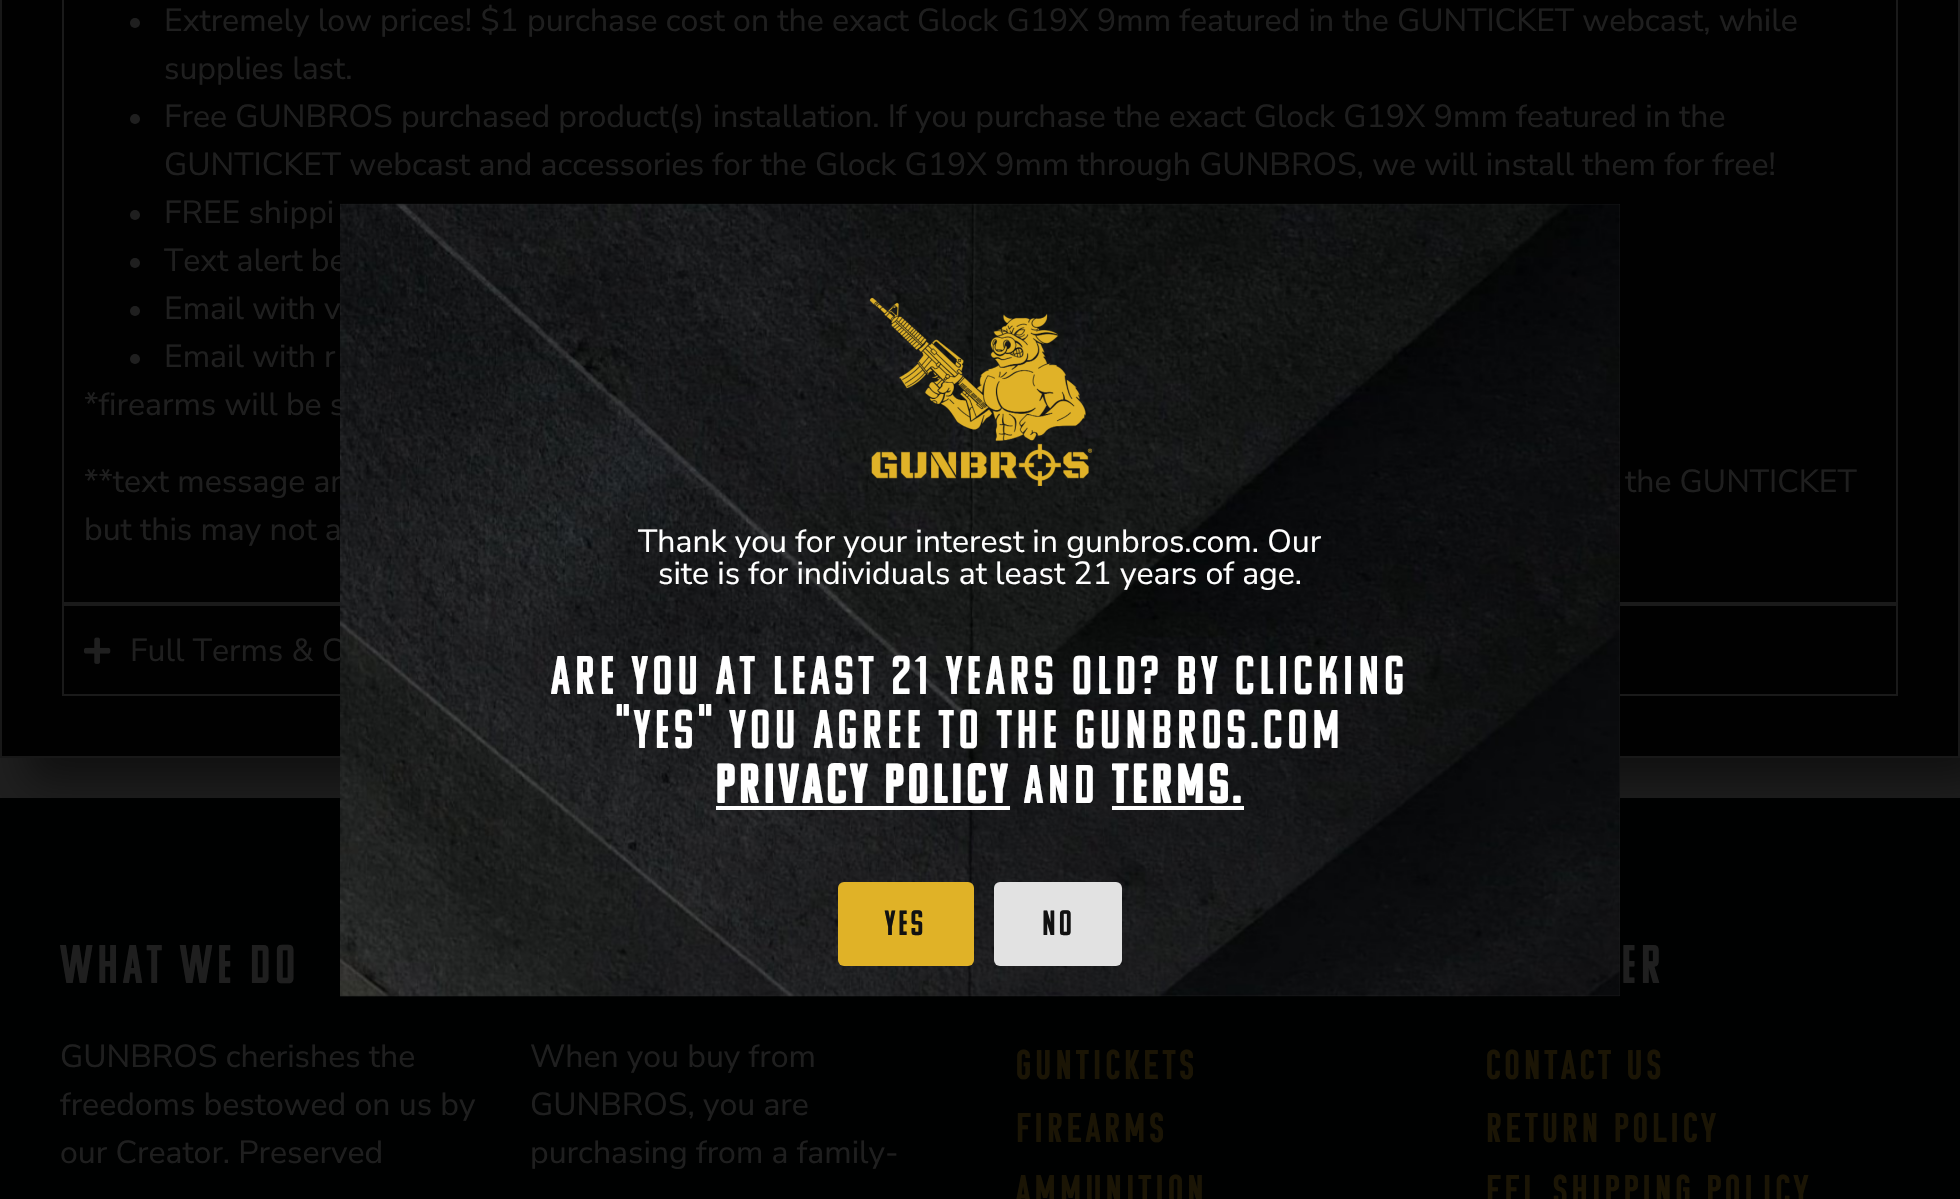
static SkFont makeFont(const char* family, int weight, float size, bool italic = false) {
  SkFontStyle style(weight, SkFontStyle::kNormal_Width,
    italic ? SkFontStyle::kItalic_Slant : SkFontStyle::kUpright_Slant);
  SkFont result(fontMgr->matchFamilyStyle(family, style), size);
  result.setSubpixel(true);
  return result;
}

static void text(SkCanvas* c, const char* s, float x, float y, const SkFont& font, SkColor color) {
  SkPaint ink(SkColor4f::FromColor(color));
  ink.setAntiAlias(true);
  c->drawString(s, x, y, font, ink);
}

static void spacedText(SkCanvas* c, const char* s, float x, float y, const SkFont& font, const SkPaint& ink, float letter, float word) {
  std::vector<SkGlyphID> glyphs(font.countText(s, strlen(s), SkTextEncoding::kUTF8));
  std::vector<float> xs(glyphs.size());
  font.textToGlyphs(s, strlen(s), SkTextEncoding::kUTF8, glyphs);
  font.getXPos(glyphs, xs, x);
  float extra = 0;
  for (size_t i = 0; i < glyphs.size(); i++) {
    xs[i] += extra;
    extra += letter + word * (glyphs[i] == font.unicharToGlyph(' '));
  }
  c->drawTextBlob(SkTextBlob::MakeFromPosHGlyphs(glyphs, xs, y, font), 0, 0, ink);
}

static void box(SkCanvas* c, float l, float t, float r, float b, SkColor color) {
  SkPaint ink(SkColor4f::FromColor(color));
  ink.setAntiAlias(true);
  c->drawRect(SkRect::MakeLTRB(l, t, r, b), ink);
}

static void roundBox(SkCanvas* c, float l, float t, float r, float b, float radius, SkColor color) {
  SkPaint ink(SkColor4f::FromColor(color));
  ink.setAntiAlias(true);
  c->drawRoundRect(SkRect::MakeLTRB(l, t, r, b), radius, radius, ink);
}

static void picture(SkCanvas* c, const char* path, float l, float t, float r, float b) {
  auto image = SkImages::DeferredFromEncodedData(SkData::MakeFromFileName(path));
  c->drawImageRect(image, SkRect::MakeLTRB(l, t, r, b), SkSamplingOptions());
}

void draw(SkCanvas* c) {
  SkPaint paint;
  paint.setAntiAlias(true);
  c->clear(0xff1f1f1f);
  paint.setColor(0x78000000);
  paint.setMaskFilter(SkMaskFilter::MakeBlur(kNormal_SkBlurStyle, 20));
  c->drawRect(SkRect::MakeLTRB(26, -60, 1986, 784), paint);
  paint.setMaskFilter(nullptr);
  paint.setColor(0xff010101);
  c->drawRect(SkRect::MakeLTRB(1, -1, 1959, 757), paint);
  paint.setStyle(SkPaint::kStroke_Style);
  paint.setStrokeWidth(2);
  paint.setColor(0xff181818);
  c->drawRect(SkRect::MakeLTRB(1, -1, 1959, 757), paint);
  paint.setColor(0xff1a1a1a);
  c->drawRect(SkRect::MakeLTRB(63, -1, 1897, 603), paint);
  paint.setStyle(SkPaint::kFill_Style);
  paint.setColor(0xff1f1f1f);
  c->drawCircle(135, 23, 5, paint);
  SkFont face1 = makeFont("Nunito Sans", 400, 32);
  text(c, "Extremely low prices! $1 purchase cost on the exact Glock G19X 9mm featured in the GUNTICKET webcast, while", 164, 31, face1, 0xff1f1f1f);
  text(c, "supplies last.", 164, 79, face1, 0xff1f1f1f);
  c->drawCircle(135, 119, 5, paint);
  text(c, "Free GUNBROS purchased product(s) installation. If you purchase the exact Glock G19X 9mm featured in the", 164, 127, face1, 0xff1f1f1f);
  text(c, "GUNTICKET webcast and accessories for the Glock G19X 9mm through GUNBROS, we will install them for free!", 164, 175, face1, 0xff1f1f1f);
  c->drawCircle(135, 215, 5, paint);
  text(c, "FREE shippi", 164, 223, face1, 0xff1f1f1f);
  c->drawCircle(135, 263, 5, paint);
  text(c, "Text alert be", 164, 271, face1, 0xff1f1f1f);
  c->drawCircle(135, 311, 5, paint);
  text(c, "Email with v", 164, 319, face1, 0xff1f1f1f);
  c->drawCircle(135, 359, 5, paint);
  text(c, "Email with r", 164, 367, face1, 0xff1f1f1f);
  text(c, "*firearms will be s", 84, 415, face1, 0xff1f1f1f);
  text(c, "**text message an", 84, 492, face1, 0xff1f1f1f);
  text(c, "the GUNTICKET", 1625, 492, face1, 0xff1f1f1f);
  text(c, "but this may not a", 84, 540, face1, 0xff1f1f1f);
  paint.setStyle(SkPaint::kStroke_Style);
  paint.setColor(0xff1a1a1a);
  c->drawRect(SkRect::MakeLTRB(63, 605, 1897, 695), paint);
  picture(c, "img_01.png", 84, 637, 111, 664);
  text(c, "Full Terms & C", 130, 661, face1, 0xff1f1f1f);
  box(c, 0, 798, 1960, 1199, 0xff000101);
  box(c, 340, 204, 1620, 996, 0xff252525);
  picture(c, "img_02.png", 340, 203, 1620, 997);
  picture(c, "img_03.png", 869, 297, 1092, 486);
  text(c, "Thank you for your interest in gunbros.com. Our", 638, 552, face1, 0xffffffff);
  text(c, "site is for individuals at least 21 years of age.", 658, 584, face1, 0xffffffff);
  SkFont face2 = makeFont("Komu", 400, 54.4f);
  paint.setStyle(SkPaint::kFill_Style);
  paint.setColor(0xffffffff);
  spacedText(c, "Are you at least 21 years old? By clicking", 551, 694, face2, paint, 4.6f, 0);
  spacedText(c, "\"Yes\" you agree to the gunbros.com", 616, 748, face2, paint, 4.6f, 0);
  SkFont face3 = makeFont("Komu", 700, 54.4f);
  spacedText(c, "Privacy Policy", 715, 803, face3, paint, 4.6f, 0);
  box(c, 716, 806, 1010, 810, 0xffffffff);
  spacedText(c, "and", 1024, 803, face2, paint, 4.6f, 0);
  spacedText(c, "Terms.", 1112, 803, face3, paint, 4.6f, 0);
  box(c, 1112, 806, 1244, 810, 0xffffffff);
  roundBox(c, 838, 882, 974, 966, 6, 0xffe0b227);
  SkFont face4 = makeFont("Komu", 400, 35);
  paint.setColor(0xff111111);
  spacedText(c, "Yes", 885, 935, face4, paint, 3, 0);
  roundBox(c, 994, 882, 1122, 966, 6, 0xffe2e2e2);
  spacedText(c, "No", 1042, 935, face4, paint, 3, 0);
  paint.setColor(0xff1f1f1f);
  spacedText(c, "WHAT WE DO", 60, 983, face2, paint, 4.6f, 0);
  text(c, "GUNBROS cherishes the", 60, 1067, face1, 0xff1f1f1f);
  text(c, "freedoms bestowed on us by", 60, 1115, face1, 0xff1f1f1f);
  text(c, "our Creator. Preserved", 60, 1163, face1, 0xff1f1f1f);
  text(c, "When you buy from", 530, 1067, face1, 0xff1f1f1f);
  text(c, "GUNBROS, you are", 530, 1115, face1, 0xff1f1f1f);
  text(c, "purchasing from a family-", 530, 1163, face1, 0xff1f1f1f);
  SkFont face5 = makeFont("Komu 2", 400, 41.5f);
  paint.setColor(0xff1b1505);
  spacedText(c, "Guntickets", 1016, 1079, face5, paint, 4.25f, 0);
  spacedText(c, "Firearms", 1016, 1142, face5, paint, 4.25f, 0);
  spacedText(c, "Ammunition", 1016, 1204, face5, paint, 4.25f, 0);
  paint.setColor(0xff1f1f1f);
  spacedText(c, "ER", 1621, 983, face2, paint, 4.6f, 0);
  paint.setColor(0xff1b1505);
  spacedText(c, "Contact Us", 1486, 1079, face5, paint, 4.25f, 0);
  spacedText(c, "Return Policy", 1486, 1142, face5, paint, 4.25f, 0);
  spacedText(c, "FFL Shipping Policy", 1486, 1204, face5, paint, 4.25f, 0);
}
